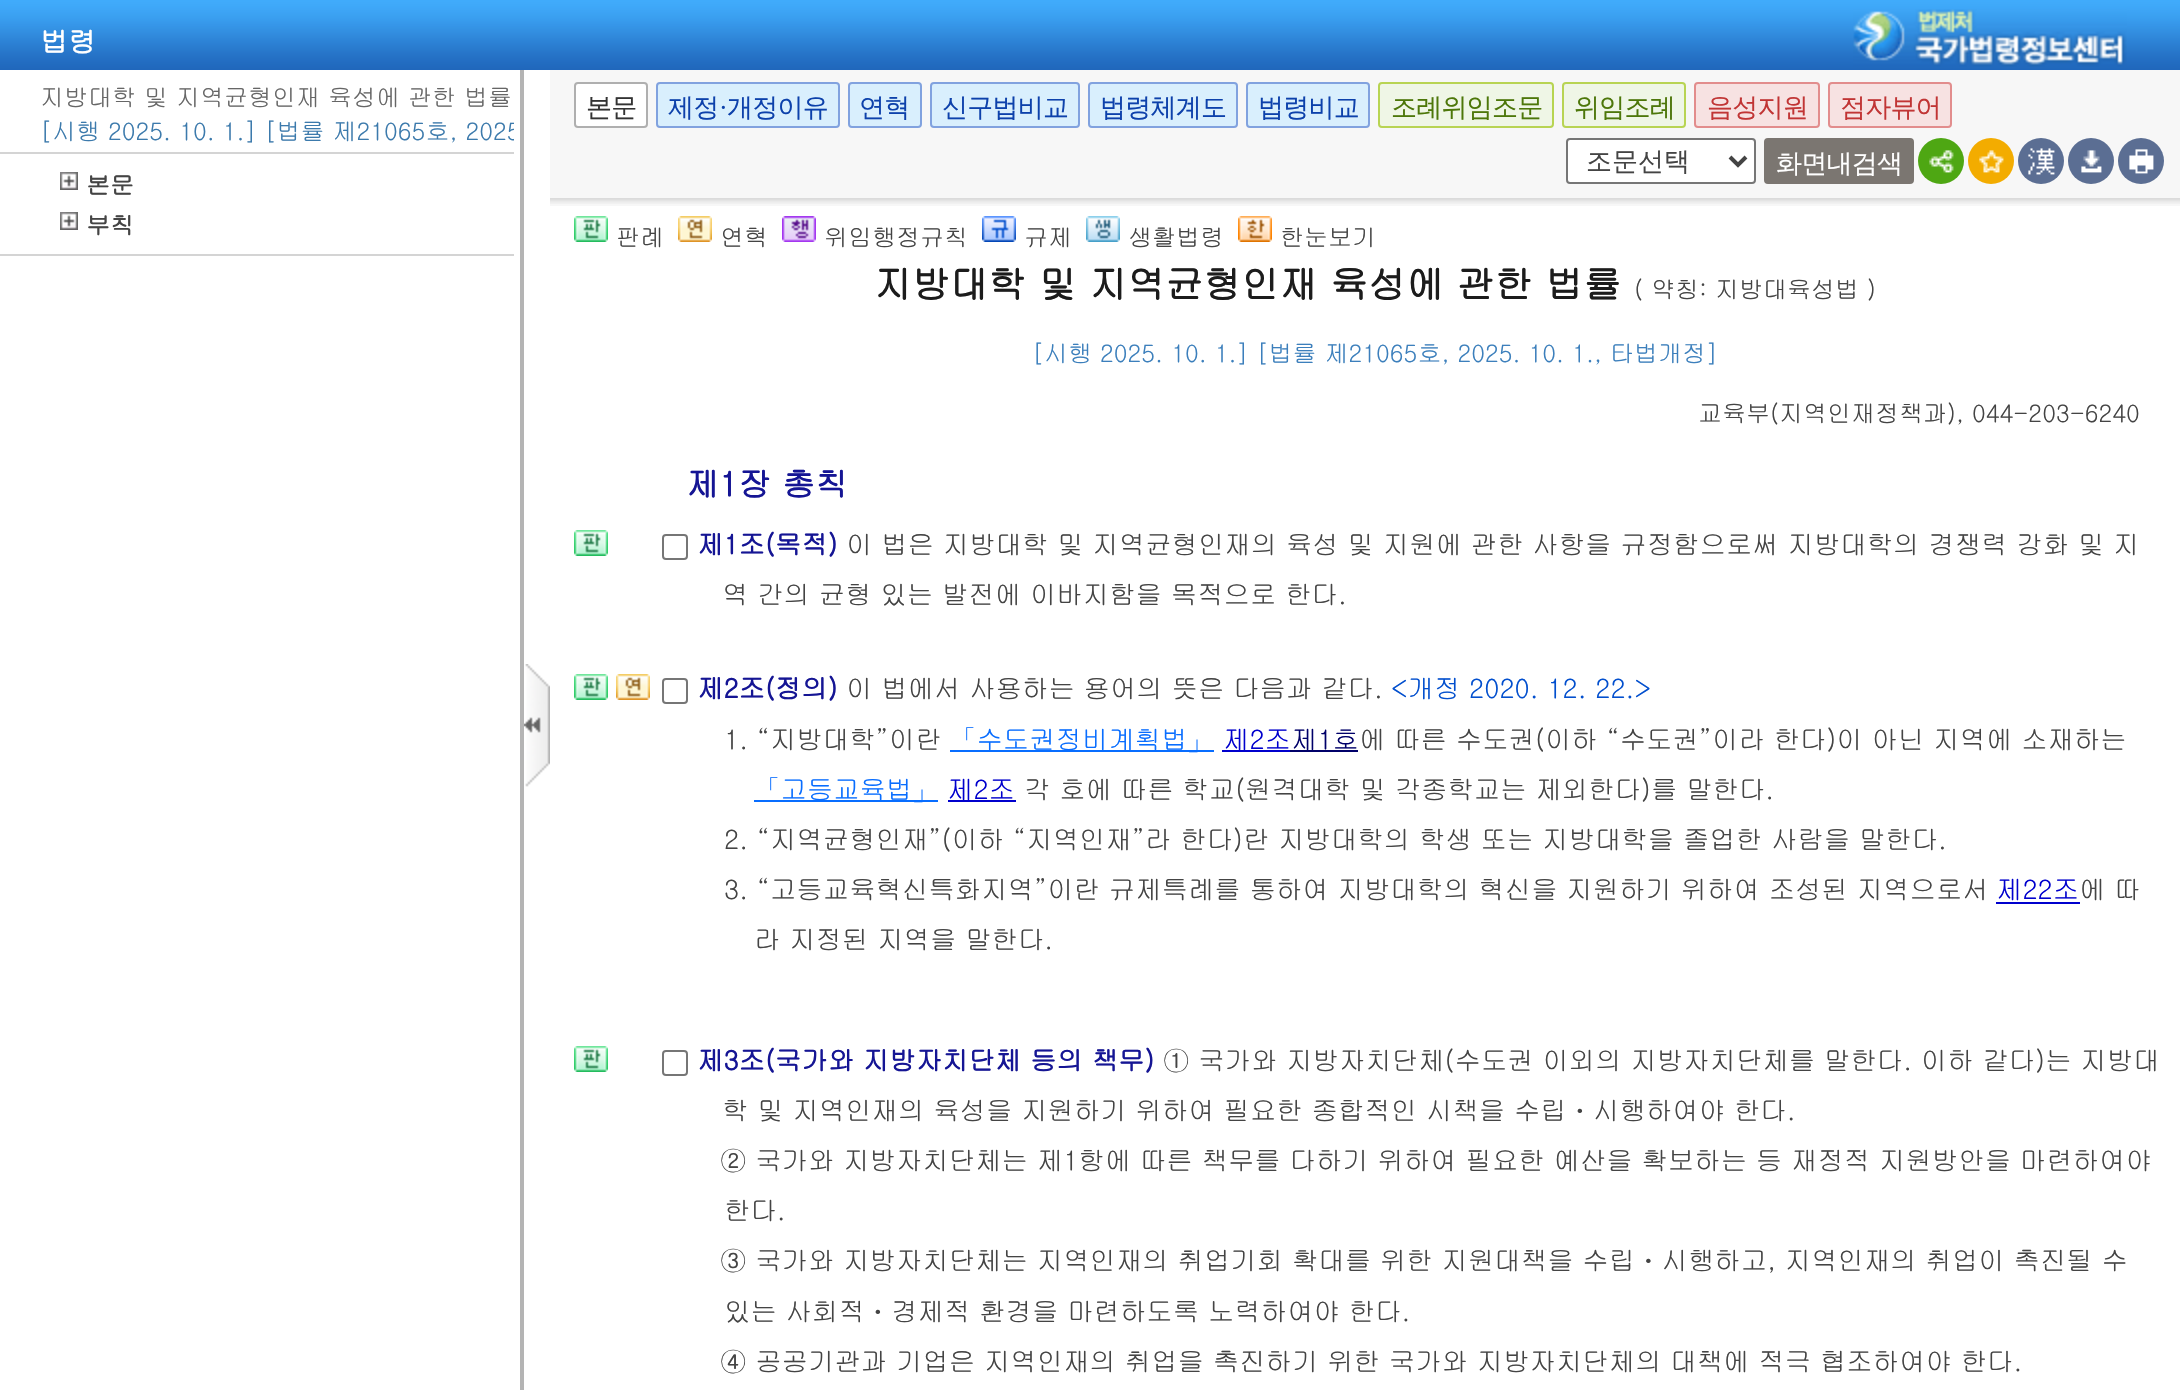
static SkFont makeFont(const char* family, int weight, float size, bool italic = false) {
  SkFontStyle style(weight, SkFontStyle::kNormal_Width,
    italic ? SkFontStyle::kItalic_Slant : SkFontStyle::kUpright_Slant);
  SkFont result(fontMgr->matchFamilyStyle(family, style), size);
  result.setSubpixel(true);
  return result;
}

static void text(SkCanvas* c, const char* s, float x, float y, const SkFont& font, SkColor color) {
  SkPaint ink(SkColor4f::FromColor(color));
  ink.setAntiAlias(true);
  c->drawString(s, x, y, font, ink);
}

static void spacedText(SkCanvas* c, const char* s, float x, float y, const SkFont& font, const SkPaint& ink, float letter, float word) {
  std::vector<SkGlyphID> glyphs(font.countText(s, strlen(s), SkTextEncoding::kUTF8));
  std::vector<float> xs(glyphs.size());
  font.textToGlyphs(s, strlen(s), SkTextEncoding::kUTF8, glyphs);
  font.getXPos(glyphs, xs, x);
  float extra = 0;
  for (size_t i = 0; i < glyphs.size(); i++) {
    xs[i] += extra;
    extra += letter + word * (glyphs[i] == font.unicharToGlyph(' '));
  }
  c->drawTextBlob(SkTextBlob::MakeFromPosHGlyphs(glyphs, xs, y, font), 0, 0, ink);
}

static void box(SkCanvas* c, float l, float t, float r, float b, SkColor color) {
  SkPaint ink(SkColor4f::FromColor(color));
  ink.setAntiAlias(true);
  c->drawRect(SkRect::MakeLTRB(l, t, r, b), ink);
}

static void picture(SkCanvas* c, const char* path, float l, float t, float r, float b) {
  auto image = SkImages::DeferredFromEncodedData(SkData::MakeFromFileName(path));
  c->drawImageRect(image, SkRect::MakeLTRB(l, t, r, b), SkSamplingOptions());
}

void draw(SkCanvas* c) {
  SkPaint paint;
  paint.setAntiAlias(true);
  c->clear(0xffffffff);
  box(c, 520, 68, 524, 1390, 0xffb4b4b4);
  picture(c, "img_01.png", 0, 0, 2180, 70);
  SkFont face1 = makeFont("Gulim", 700, 28);
  text(c, "법령", 40, 52, face1, 0xffffffff);
  picture(c, "img_02.png", 1853, 9, 2127, 67);
  box(c, 0, 254, 514, 256, 0xffd4d4d4);
  SkFont face2 = makeFont("Gulim", 400, 24);
  text(c, "지방대학 및 지역균형인재 육성에 관한 법률", 40, 106, face2, 0xff666666);
  c->save();
  c->clipRect(SkRect::MakeLTRB(0, 68, 514, 1378));
  text(c, "[시행 2025. 10. 1.] [법률 제21065호, 2025", 40, 140, face2, 0xff3c7aac);
  c->restore();
  box(c, 0, 152, 514, 154, 0xffd4d4d4);
  picture(c, "img_03.png", 60, 172, 78, 190);
  SkFont face3 = makeFont("Gulim", 700, 24);
  text(c, "본문", 86, 194, face3, 0xff444444);
  picture(c, "img_03.png", 60, 212, 78, 230);
  text(c, "부칙", 86, 234, face3, 0xff444444);
  box(c, 550, 70, 2180, 206, 0xfff7f7f7);
  picture(c, "img_04.png", 550, 198, 2180, 204);
  paint.setColor(0xffffffff);
  c->drawRoundRect(SkRect::MakeLTRB(575, 83, 647, 127), 3, 3, paint);
  paint.setStyle(SkPaint::kStroke_Style);
  paint.setStrokeWidth(2);
  paint.setColor(0xffafafaf);
  c->drawRoundRect(SkRect::MakeLTRB(575, 83, 647, 127), 3, 3, paint);
  SkFont face4 = makeFont("WenQuanYi Zen Hei", 500, 26);
  paint.setStyle(SkPaint::kFill_Style);
  paint.setColor(0xff333333);
  spacedText(c, "본문", 586, 116, face4, paint, -0.75f, 0);
  paint.setColor(0xffd9effd);
  c->drawRoundRect(SkRect::MakeLTRB(657, 83, 839, 127), 3, 3, paint);
  paint.setStyle(SkPaint::kStroke_Style);
  paint.setColor(0xff81a2df);
  c->drawRoundRect(SkRect::MakeLTRB(657, 83, 839, 127), 3, 3, paint);
  paint.setStyle(SkPaint::kFill_Style);
  paint.setColor(0xff0d41ab);
  spacedText(c, "제정", 668, 116, face4, paint, -0.75f, 0);
  SkFont face5 = makeFont("Liberation Serif", 400, 26);
  spacedText(c, "·", 719, 116, face5, paint, -0.75f, 0);
  spacedText(c, "개정이유", 727, 116, face4, paint, -0.75f, 0);
  paint.setColor(0xffd9effd);
  c->drawRoundRect(SkRect::MakeLTRB(849, 83, 921, 127), 3, 3, paint);
  paint.setStyle(SkPaint::kStroke_Style);
  paint.setColor(0xff81a2df);
  c->drawRoundRect(SkRect::MakeLTRB(849, 83, 921, 127), 3, 3, paint);
  paint.setStyle(SkPaint::kFill_Style);
  paint.setColor(0xff0d41ab);
  spacedText(c, "연혁", 859, 116, face4, paint, -0.75f, 0);
  paint.setColor(0xffd9effd);
  c->drawRoundRect(SkRect::MakeLTRB(931, 83, 1079, 127), 3, 3, paint);
  paint.setStyle(SkPaint::kStroke_Style);
  paint.setColor(0xff81a2df);
  c->drawRoundRect(SkRect::MakeLTRB(931, 83, 1079, 127), 3, 3, paint);
  paint.setStyle(SkPaint::kFill_Style);
  paint.setColor(0xff0d41ab);
  spacedText(c, "신구법비교", 942, 116, face4, paint, -0.75f, 0);
  paint.setColor(0xffd9effd);
  c->drawRoundRect(SkRect::MakeLTRB(1089, 83, 1237, 127), 3, 3, paint);
  paint.setStyle(SkPaint::kStroke_Style);
  paint.setColor(0xff81a2df);
  c->drawRoundRect(SkRect::MakeLTRB(1089, 83, 1237, 127), 3, 3, paint);
  paint.setStyle(SkPaint::kFill_Style);
  paint.setColor(0xff0d41ab);
  spacedText(c, "법령체계도", 1100, 116, face4, paint, -0.75f, 0);
  paint.setColor(0xffd9effd);
  c->drawRoundRect(SkRect::MakeLTRB(1247, 83, 1369, 127), 3, 3, paint);
  paint.setStyle(SkPaint::kStroke_Style);
  paint.setColor(0xff81a2df);
  c->drawRoundRect(SkRect::MakeLTRB(1247, 83, 1369, 127), 3, 3, paint);
  paint.setStyle(SkPaint::kFill_Style);
  paint.setColor(0xff0d41ab);
  spacedText(c, "법령비교", 1258, 116, face4, paint, -0.75f, 0);
  paint.setColor(0xffeff6e6);
  c->drawRoundRect(SkRect::MakeLTRB(1379, 83, 1553, 127), 3, 3, paint);
  paint.setStyle(SkPaint::kStroke_Style);
  paint.setColor(0xffb8d453);
  c->drawRoundRect(SkRect::MakeLTRB(1379, 83, 1553, 127), 3, 3, paint);
  paint.setStyle(SkPaint::kFill_Style);
  paint.setColor(0xff4d770a);
  spacedText(c, "조례위임조문", 1391, 116, face4, paint, -0.75f, 0);
  paint.setColor(0xffeff6e6);
  c->drawRoundRect(SkRect::MakeLTRB(1563, 83, 1685, 127), 3, 3, paint);
  paint.setStyle(SkPaint::kStroke_Style);
  paint.setColor(0xffb8d453);
  c->drawRoundRect(SkRect::MakeLTRB(1563, 83, 1685, 127), 3, 3, paint);
  paint.setStyle(SkPaint::kFill_Style);
  paint.setColor(0xff4d770a);
  spacedText(c, "위임조례", 1574, 116, face4, paint, -0.75f, 0);
  paint.setColor(0xfff7e2e2);
  c->drawRoundRect(SkRect::MakeLTRB(1695, 83, 1819, 127), 3, 3, paint);
  paint.setStyle(SkPaint::kStroke_Style);
  paint.setColor(0xffe28d8d);
  c->drawRoundRect(SkRect::MakeLTRB(1695, 83, 1819, 127), 3, 3, paint);
  paint.setStyle(SkPaint::kFill_Style);
  paint.setColor(0xffc13535);
  spacedText(c, "음성지원", 1707, 116, face4, paint, -0.75f, 0);
  paint.setColor(0xfff7e2e2);
  c->drawRoundRect(SkRect::MakeLTRB(1829, 83, 1951, 127), 3, 3, paint);
  paint.setStyle(SkPaint::kStroke_Style);
  paint.setColor(0xffe28d8d);
  c->drawRoundRect(SkRect::MakeLTRB(1829, 83, 1951, 127), 3, 3, paint);
  paint.setStyle(SkPaint::kFill_Style);
  paint.setColor(0xffc13535);
  spacedText(c, "점자뷰어", 1840, 116, face4, paint, -0.75f, 0);
  paint.setColor(0xffffffff);
  c->drawRoundRect(SkRect::MakeLTRB(1567, 139, 1755, 183), 3, 3, paint);
  paint.setStyle(SkPaint::kStroke_Style);
  paint.setColor(0xff767676);
  c->drawRoundRect(SkRect::MakeLTRB(1567, 139, 1755, 183), 3, 3, paint);
  paint.setStrokeWidth(4);
  paint.setColor(0xff444444);
  c->drawPath(SkPathBuilder().moveTo(1730, 157).lineTo(1738, 165).lineTo(1746, 157).detach(), paint);
  text(c, "조문선택", 1586, 170, face4, 0xff444444);
  paint.setStyle(SkPaint::kFill_Style);
  paint.setColor(0xff7b7671);
  c->drawRoundRect(SkRect::MakeLTRB(1765, 139, 1913, 183), 3, 3, paint);
  paint.setStyle(SkPaint::kStroke_Style);
  paint.setStrokeWidth(2);
  c->drawRoundRect(SkRect::MakeLTRB(1765, 139, 1913, 183), 3, 3, paint);
  paint.setStyle(SkPaint::kFill_Style);
  paint.setColor(0xffffffff);
  spacedText(c, "화면내검색", 1776, 172, face4, paint, -0.75f, 0);
  paint.setColor(0xff4ea713);
  c->drawCircle(1941, 161, 23, paint);
  picture(c, "img_05.png", 1929, 150, 1954, 173);
  paint.setColor(0xfff3ac00);
  c->drawCircle(1991, 161, 23, paint);
  picture(c, "img_06.png", 1979, 150, 2004, 173);
  paint.setColor(0xff5b6e93);
  c->drawCircle(2041, 161, 23, paint);
  picture(c, "img_07.png", 2028, 148, 2055, 175);
  c->drawCircle(2091, 161, 23, paint);
  picture(c, "img_08.png", 2081, 150, 2102, 173);
  c->drawCircle(2141, 161, 23, paint);
  picture(c, "img_09.png", 2129, 149, 2154, 174);
  picture(c, "img_10.png", 574, 216, 608, 242);
  text(c, "판례", 616, 246, face2, 0xff444444);
  picture(c, "img_11.png", 678, 216, 712, 242);
  text(c, "연혁", 720, 246, face2, 0xff444444);
  picture(c, "img_12.png", 782, 216, 816, 242);
  text(c, "위임행정규칙", 824, 246, face2, 0xff444444);
  picture(c, "img_13.png", 982, 216, 1016, 242);
  text(c, "규제", 1024, 246, face2, 0xff444444);
  picture(c, "img_14.png", 1086, 216, 1120, 242);
  text(c, "생활법령", 1128, 246, face2, 0xff444444);
  picture(c, "img_15.png", 1238, 216, 1272, 242);
  text(c, "한눈보기", 1280, 246, face2, 0xff444444);
  SkFont face6 = makeFont("Gulim", 700, 38);
  text(c, "지방대학 및 지역균형인재 육성에 관한 법률", 874, 298, face6, 0xff1c1c1c);
  text(c, "( 약칭: 지방대육성법 )", 1634, 298, face2, 0xff444444);
  text(c, "[시행 2025. 10. 1.] [법률 제21065호, 2025. 10. 1., 타법개정]", 1032, 362, face2, 0xff3c7fbc);
  text(c, "교육부(지역인재정책과), 044-203-6240", 1698, 422, face2, 0xff444444);
  SkFont face7 = makeFont("Gulim", 700, 33);
  text(c, "제1장 총칙", 686, 496, face7, 0xff151594);
  picture(c, "img_10.png", 574, 530, 608, 556);
  paint.setStyle(SkPaint::kStroke_Style);
  paint.setColor(0xff767676);
  c->drawRoundRect(SkRect::MakeLTRB(663, 535, 687, 559), 3, 3, paint);
  SkFont face8 = makeFont("Gulim", 700, 26.4f);
  text(c, "제1조(목적)", 697, 554, face8, 0xff151594);
  SkFont face9 = makeFont("Gulim", 400, 26.4f);
  text(c, "이 법은 지방대학 및 지역균형인재의 육성 및 지원에 관한 사항을 규정함으로써 지방대학의 경쟁력 강화 및 지", 846, 554, face9, 0xff444444);
  text(c, "역 간의 균형 있는 발전에 이바지함을 목적으로 한다.", 722, 604, face9, 0xff444444);
  picture(c, "img_10.png", 574, 674, 608, 700);
  picture(c, "img_11.png", 616, 674, 650, 700);
  c->drawRoundRect(SkRect::MakeLTRB(663, 679, 687, 703), 3, 3, paint);
  text(c, "제2조(정의)", 697, 698, face8, 0xff151594);
  text(c, "이 법에서 사용하는 용어의 뜻은 다음과 같다.", 846, 698, face9, 0xff444444);
  text(c, "<개정 2020. 12. 22.>", 1391, 698, face9, 0xff024fce);
  text(c, "1. “지방대학”이란", 724, 749, face9, 0xff444444);
  box(c, 950, 750, 1214, 752, 0xff086dff);
  text(c, "「수도권정비계획법」", 950, 749, face9, 0xff086dff);
  box(c, 1222, 750, 1290, 752, 0xff0000cd);
  text(c, "제2조", 1223, 749, face9, 0xff0000cd);
  box(c, 1290, 750, 1358, 752, 0xff000069);
  text(c, "제1호", 1291, 749, face9, 0xff000069);
  text(c, "에 따른 수도권(이하 “수도권”이라 한다)이 아닌 지역에 소재하는", 1359, 749, face9, 0xff444444);
  box(c, 754, 800, 938, 802, 0xff086dff);
  text(c, "「고등교육법」", 754, 799, face9, 0xff086dff);
  box(c, 948, 800, 1016, 802, 0xff0000cd);
  text(c, "제2조", 947, 799, face9, 0xff0000cd);
  text(c, "각 호에 따른 학교(원격대학 및 각종학교는 제외한다)를 말한다.", 1024, 799, face9, 0xff444444);
  text(c, "2. “지역균형인재”(이하 “지역인재”라 한다)란 지방대학의 학생 또는 지방대학을 졸업한 사람을 말한다.", 724, 849, face9, 0xff444444);
  text(c, "3. “고등교육혁신특화지역”이란 규제특례를 통하여 지방대학의 혁신을 지원하기 위하여 조성된 지역으로서", 724, 899, face9, 0xff444444);
  text(c, "제22조", 1996, 899, face9, 0xff0000cd);
  box(c, 1996, 902, 2080, 904, 0xff0000cd);
  text(c, "에 따", 2079, 899, face9, 0xff444444);
  text(c, "라 지정된 지역을 말한다.", 754, 949, face9, 0xff444444);
  picture(c, "img_10.png", 574, 1046, 608, 1072);
  c->drawRoundRect(SkRect::MakeLTRB(663, 1051, 687, 1075), 3, 3, paint);
  text(c, "제3조(국가와 지방자치단체 등의 책무)", 697, 1070, face8, 0xff151594);
  text(c, "① 국가와 지방자치단체(수도권 이외의 지방자치단체를 말한다. 이하 같다)는 지방대", 1163, 1070, face9, 0xff444444);
  text(c, "학 및 지역인재의 육성을 지원하기 위하여 필요한 종합적인 시책을 수립ㆍ시행하여야 한다.", 722, 1120, face9, 0xff444444);
  text(c, "② 국가와 지방자치단체는 제1항에 따른 책무를 다하기 위하여 필요한 예산을 확보하는 등 재정적 지원방안을 마련하여야", 720, 1170, face9, 0xff444444);
  text(c, "한다.", 724, 1220, face9, 0xff444444);
  text(c, "③ 국가와 지방자치단체는 지역인재의 취업기회 확대를 위한 지원대책을 수립ㆍ시행하고, 지역인재의 취업이 촉진될 수", 720, 1270, face9, 0xff444444);
  text(c, "있는 사회적ㆍ경제적 환경을 마련하도록 노력하여야 한다.", 724, 1321, face9, 0xff444444);
  text(c, "④ 공공기관과 기업은 지역인재의 취업을 촉진하기 위한 국가와 지방자치단체의 대책에 적극 협조하여야 한다.", 720, 1371, face9, 0xff444444);
  picture(c, "img_16.png", 524, 664, 550, 787);
}
